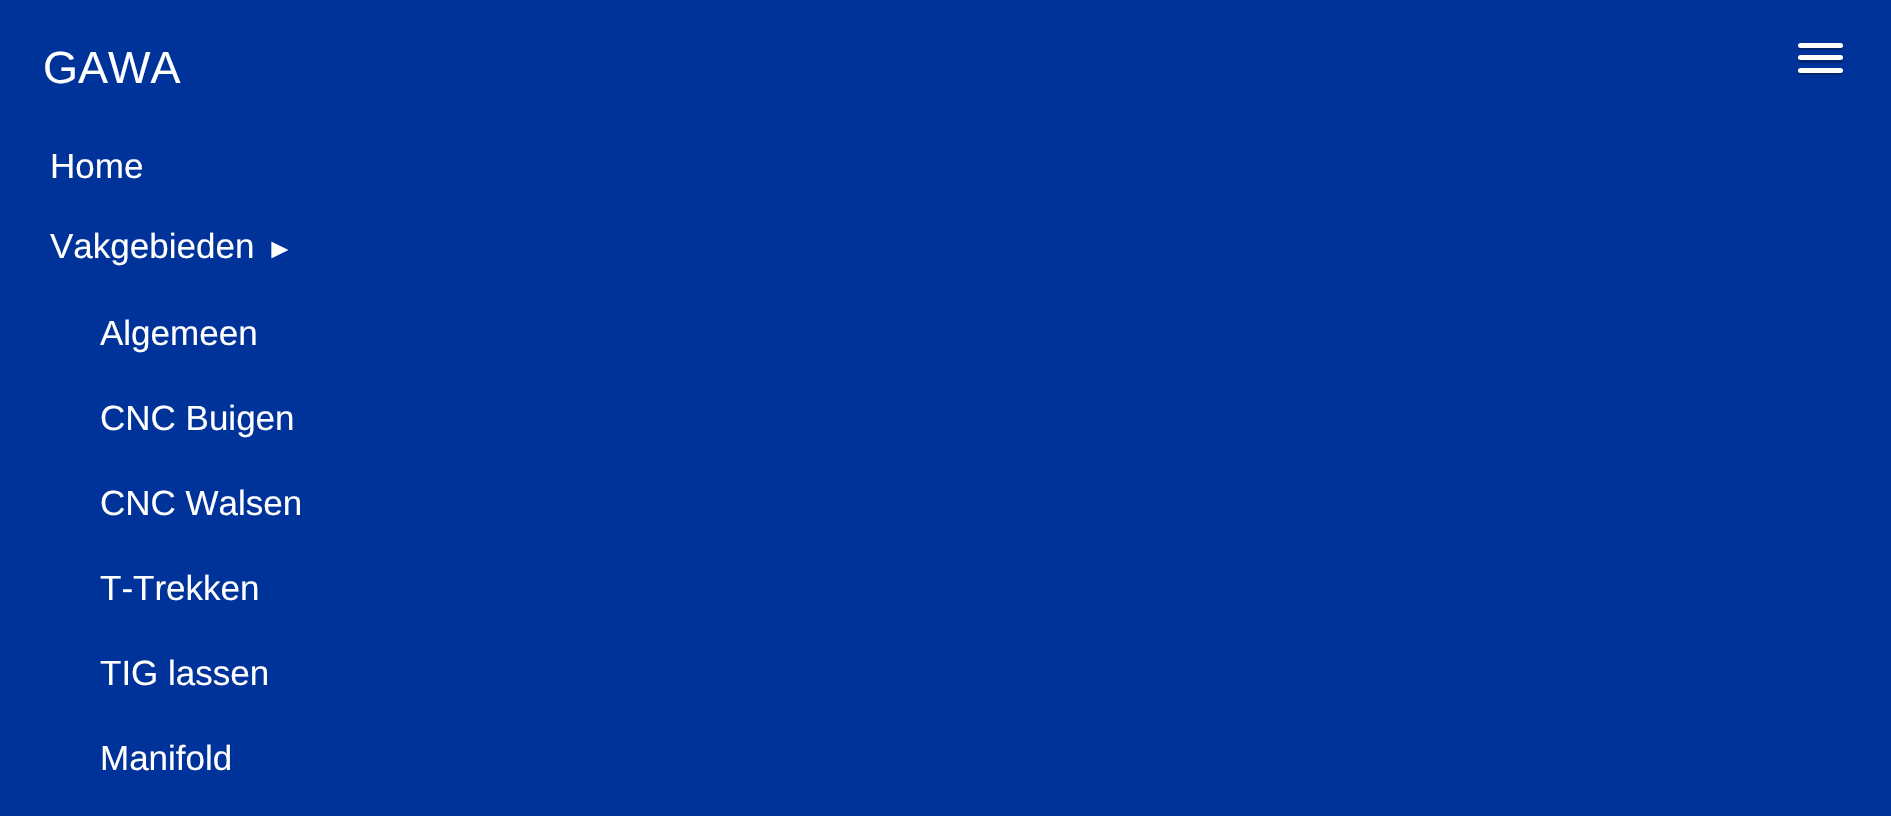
static SkFont makeFont(const char* family, int weight, float size, bool italic = false) {
  SkFontStyle style(weight, SkFontStyle::kNormal_Width,
    italic ? SkFontStyle::kItalic_Slant : SkFontStyle::kUpright_Slant);
  SkFont result(fontMgr->matchFamilyStyle(family, style), size);
  result.setSubpixel(true);
  return result;
}

static void text(SkCanvas* c, const char* s, float x, float y, const SkFont& font, SkColor color) {
  SkPaint ink(SkColor4f::FromColor(color));
  ink.setAntiAlias(true);
  c->drawString(s, x, y, font, ink);
}

static void roundBox(SkCanvas* c, float l, float t, float r, float b, float radius, SkColor color) {
  SkPaint ink(SkColor4f::FromColor(color));
  ink.setAntiAlias(true);
  c->drawRoundRect(SkRect::MakeLTRB(l, t, r, b), radius, radius, ink);
}

void draw(SkCanvas* c) {
  SkPaint paint;
  paint.setAntiAlias(true);
  c->clear(0xff003399);
  SkFont face1 = makeFont("Liberation Sans", 400, 45);
  text(c, "GAWA", 43, 83, face1, 0xffffffff);
  paint.setColor(0xff002673);
  c->drawPath(SkPathBuilder().moveTo(1798, 47).cubicTo(1796, 52, 1806, 50, 1807, 50).lineTo(1834, 50).cubicTo(1835, 50, 1842, 52, 1843, 48).lineTo(1842, 46).lineTo(1840, 47).lineTo(1800, 47).close().detach(), paint);
  roundBox(c, 1798, 43, 1843, 48, 2.5f, 0xffffffff);
  c->drawPath(SkPathBuilder().moveTo(1798, 59).cubicTo(1796, 64, 1807, 63, 1807, 63).lineTo(1834, 63).cubicTo(1835, 63, 1842, 65, 1843, 61).lineTo(1842, 59).lineTo(1840, 60).cubicTo(1837, 60, 1800, 61, 1798, 59).close().detach(), paint);
  roundBox(c, 1798, 55, 1843, 60, 2.5f, 0xffffffff);
  c->drawPath(SkPathBuilder().moveTo(1798, 72).cubicTo(1796, 77, 1806, 75, 1807, 75).lineTo(1834, 75).cubicTo(1835, 75, 1842, 77, 1843, 73).lineTo(1842, 71).lineTo(1840, 72).lineTo(1800, 72).close().detach(), paint);
  roundBox(c, 1798, 68, 1843, 73, 2.5f, 0xffffffff);
  SkFont face2 = makeFont("Liberation Sans", 400, 35);
  text(c, "Home", 50, 178, face2, 0xffffffff);
  text(c, "Vakgebieden", 50, 258, face2, 0xffffffff);
  SkFont face3 = makeFont("Liberation Sans", 400, 28);
  text(c, "►", 266, 258, face3, 0xffffffff);
  text(c, "Algemeen", 100, 345, face2, 0xffffffff);
  text(c, "CNC Buigen", 100, 430, face2, 0xffffffff);
  text(c, "CNC Walsen", 100, 515, face2, 0xffffffff);
  text(c, "T-Trekken", 100, 600, face2, 0xffffffff);
  text(c, "TIG lassen", 100, 685, face2, 0xffffffff);
  text(c, "Manifold", 100, 770, face2, 0xffffffff);
}
